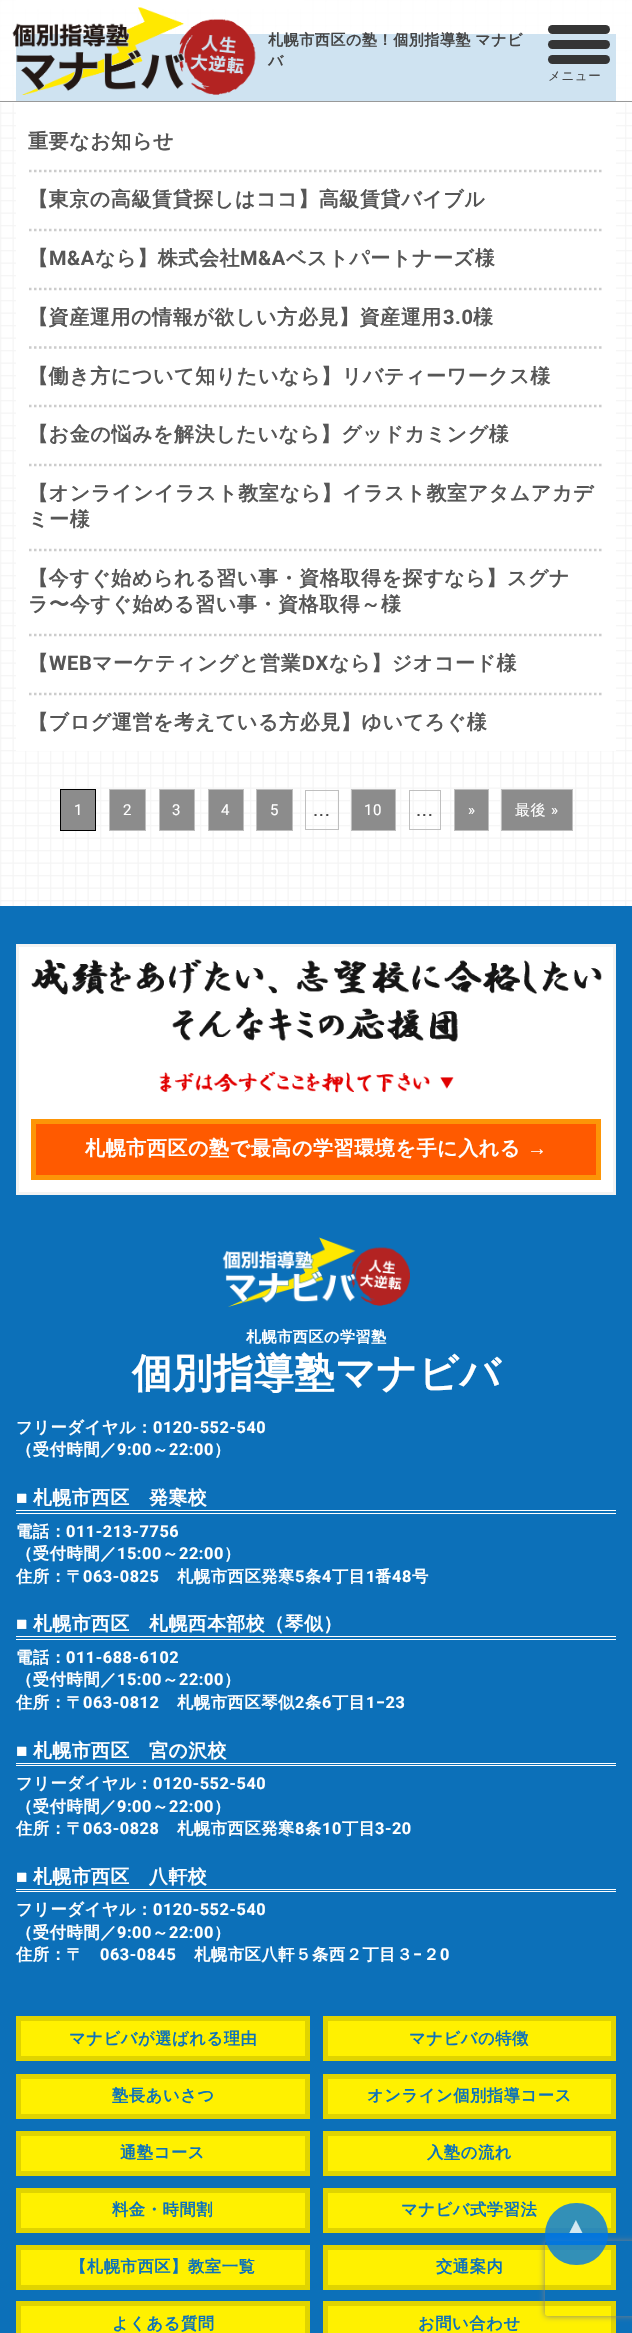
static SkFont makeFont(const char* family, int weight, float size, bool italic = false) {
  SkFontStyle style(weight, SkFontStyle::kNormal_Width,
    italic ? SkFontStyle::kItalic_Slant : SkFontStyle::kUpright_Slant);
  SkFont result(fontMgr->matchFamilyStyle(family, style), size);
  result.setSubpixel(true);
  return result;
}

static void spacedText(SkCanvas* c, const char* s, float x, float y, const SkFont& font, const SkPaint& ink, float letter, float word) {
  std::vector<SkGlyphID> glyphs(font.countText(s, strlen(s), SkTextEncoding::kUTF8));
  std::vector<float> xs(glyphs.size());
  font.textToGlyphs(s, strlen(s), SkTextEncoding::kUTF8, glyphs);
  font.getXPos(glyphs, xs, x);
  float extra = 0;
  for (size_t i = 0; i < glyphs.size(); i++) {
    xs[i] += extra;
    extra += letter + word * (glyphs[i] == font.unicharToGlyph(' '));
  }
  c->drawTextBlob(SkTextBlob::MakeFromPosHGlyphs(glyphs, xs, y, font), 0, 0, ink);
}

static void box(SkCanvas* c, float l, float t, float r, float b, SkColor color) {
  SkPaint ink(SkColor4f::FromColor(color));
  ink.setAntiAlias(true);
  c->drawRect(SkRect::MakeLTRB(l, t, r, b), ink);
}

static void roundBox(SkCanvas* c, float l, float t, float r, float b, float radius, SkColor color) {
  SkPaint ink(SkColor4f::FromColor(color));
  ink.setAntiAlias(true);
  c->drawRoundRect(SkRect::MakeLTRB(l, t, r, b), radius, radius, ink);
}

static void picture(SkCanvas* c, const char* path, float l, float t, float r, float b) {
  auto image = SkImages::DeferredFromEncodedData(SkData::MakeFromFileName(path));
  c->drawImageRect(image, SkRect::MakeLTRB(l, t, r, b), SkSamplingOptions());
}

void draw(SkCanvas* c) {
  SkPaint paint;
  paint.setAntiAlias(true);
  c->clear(0xffffffff);
  picture(c, "img_01.png", 0, 0, 632, 906);
  box(c, 16, 0, 304, 9, 0xffffffff);
  box(c, 16, 102, 616, 751, 0xffffffff);
  box(c, 16, 34, 616, 101, 0xff0c70b9);
  box(c, 0, 0, 632, 103, 0xccffffff);
  box(c, 0, 101, 632, 102, 0xff999999);
  picture(c, "img_02.png", 12, 7, 256, 95);
  SkFont face1 = makeFont("WenQuanYi Zen Hei", 700, 15);
  paint.setColor(0xff454545);
  spacedText(c, "札幌市西区の塾！個別指導塾 マナビ", 268, 45, face1, paint, 0.6f, -1);
  spacedText(c, "バ", 268, 66, face1, paint, 0.6f, 0);
  roundBox(c, 548, 25, 610, 34, 4.5f, 0xff353535);
  roundBox(c, 548, 40, 610, 49, 4.5f, 0xff353535);
  roundBox(c, 548, 55, 610, 64, 4.5f, 0xff353535);
  SkFont face2 = makeFont("WenQuanYi Zen Hei", 500, 12.5f);
  spacedText(c, "メニュー", 548, 80, face2, paint, 0.6f, 0);
  paint.setStyle(SkPaint::kStroke_Style);
  paint.setStrokeWidth(2.5f);
  paint.setColor(0xffcccccc);
  paint.setPathEffect(SkDashPathEffect::Make({{2.5f, 2.5f}}, 0));
  c->drawPath(SkPathBuilder().moveTo(29, 171).lineTo(604, 171).detach(), paint);
  paint.setPathEffect(nullptr);
  SkFont face3 = makeFont("WenQuanYi Zen Hei", 700, 20);
  paint.setStyle(SkPaint::kFill_Style);
  paint.setColor(0xff565656);
  spacedText(c, "重要なお知らせ", 28, 148, face3, paint, 0.6f, 0);
  paint.setStyle(SkPaint::kStroke_Style);
  paint.setColor(0xffcccccc);
  paint.setPathEffect(SkDashPathEffect::Make({{2.5f, 2.5f}}, 0));
  c->drawPath(SkPathBuilder().moveTo(29, 230).lineTo(604, 230).detach(), paint);
  paint.setPathEffect(nullptr);
  paint.setStyle(SkPaint::kFill_Style);
  paint.setColor(0xff565656);
  spacedText(c, "【東京の高級賃貸探しはココ】高級賃貸バイブル", 28, 206, face3, paint, 0.6f, 0);
  paint.setStyle(SkPaint::kStroke_Style);
  paint.setColor(0xffcccccc);
  paint.setPathEffect(SkDashPathEffect::Make({{2.5f, 2.5f}}, 0));
  c->drawPath(SkPathBuilder().moveTo(29, 289).lineTo(604, 289).detach(), paint);
  paint.setPathEffect(nullptr);
  paint.setStyle(SkPaint::kFill_Style);
  paint.setColor(0xff565656);
  spacedText(c, "【", 28, 265, face3, paint, 0.6f, 0);
  SkFont face4 = makeFont("Roboto", 700, 20);
  spacedText(c, "M&A", 49, 265, face4, paint, 0.6f, 0);
  spacedText(c, "なら】株式会社", 95, 265, face3, paint, 0.6f, 0);
  spacedText(c, "M&A", 240, 265, face4, paint, 0.6f, 0);
  spacedText(c, "ベストパートナーズ様", 286, 265, face3, paint, 0.6f, 0);
  paint.setStyle(SkPaint::kStroke_Style);
  paint.setColor(0xffcccccc);
  paint.setPathEffect(SkDashPathEffect::Make({{2.5f, 2.5f}}, 0));
  c->drawPath(SkPathBuilder().moveTo(29, 347.5f).lineTo(604, 347.5f).detach(), paint);
  paint.setPathEffect(nullptr);
  paint.setStyle(SkPaint::kFill_Style);
  paint.setColor(0xff565656);
  spacedText(c, "【資産運用の情報が欲しい方必見】資産運用", 28, 324, face3, paint, 0.6f, 0);
  spacedText(c, "3.0", 443, 324, face4, paint, 0.6f, 0);
  spacedText(c, "様", 473, 324, face3, paint, 0.6f, 0);
  paint.setStyle(SkPaint::kStroke_Style);
  paint.setColor(0xffcccccc);
  paint.setPathEffect(SkDashPathEffect::Make({{2.5f, 2.5f}}, 0));
  c->drawPath(SkPathBuilder().moveTo(29, 406).lineTo(604, 406).detach(), paint);
  paint.setPathEffect(nullptr);
  paint.setStyle(SkPaint::kFill_Style);
  paint.setColor(0xff565656);
  spacedText(c, "【働き方について知りたいなら】リバティーワークス様", 28, 383, face3, paint, 0.6f, 0);
  paint.setStyle(SkPaint::kStroke_Style);
  paint.setColor(0xffcccccc);
  paint.setPathEffect(SkDashPathEffect::Make({{2.5f, 2.5f}}, 0));
  c->drawPath(SkPathBuilder().moveTo(29, 465).lineTo(604, 465).detach(), paint);
  paint.setPathEffect(nullptr);
  paint.setStyle(SkPaint::kFill_Style);
  paint.setColor(0xff565656);
  spacedText(c, "【お金の悩みを解決したいなら】グッドカミング様", 28, 441, face3, paint, 0.6f, 0);
  paint.setStyle(SkPaint::kStroke_Style);
  paint.setColor(0xffcccccc);
  paint.setPathEffect(SkDashPathEffect::Make({{2.5f, 2.5f}}, 0));
  c->drawPath(SkPathBuilder().moveTo(29, 550).lineTo(604, 550).detach(), paint);
  paint.setPathEffect(nullptr);
  paint.setStyle(SkPaint::kFill_Style);
  paint.setColor(0xff565656);
  spacedText(c, "【オンラインイラスト教室なら】イラスト教室アタムアカデ", 28, 500, face3, paint, 0.6f, 0);
  spacedText(c, "ミー様", 28, 526, face3, paint, 0.6f, 0);
  paint.setStyle(SkPaint::kStroke_Style);
  paint.setColor(0xffcccccc);
  paint.setPathEffect(SkDashPathEffect::Make({{2.5f, 2.5f}}, 0));
  c->drawPath(SkPathBuilder().moveTo(29, 635).lineTo(604, 635).detach(), paint);
  paint.setPathEffect(nullptr);
  paint.setStyle(SkPaint::kFill_Style);
  paint.setColor(0xff565656);
  spacedText(c, "【今すぐ始められる習い事・資格取得を探すなら】スグナ", 28, 585, face3, paint, 0.6f, 0);
  spacedText(c, "ラ〜今すぐ始める習い事・資格取得～様", 28, 611, face3, paint, 0.6f, 0);
  paint.setStyle(SkPaint::kStroke_Style);
  paint.setColor(0xffcccccc);
  paint.setPathEffect(SkDashPathEffect::Make({{2.5f, 2.5f}}, 0));
  c->drawPath(SkPathBuilder().moveTo(29, 694).lineTo(604, 694).detach(), paint);
  paint.setPathEffect(nullptr);
  paint.setStyle(SkPaint::kFill_Style);
  paint.setColor(0xff565656);
  spacedText(c, "【", 28, 670, face3, paint, 0.6f, 0);
  spacedText(c, "WEB", 49, 670, face4, paint, 0.6f, 0);
  spacedText(c, "マーケティングと営業", 92, 670, face3, paint, 0.6f, 0);
  spacedText(c, "DX", 302, 670, face4, paint, 0.6f, 0);
  spacedText(c, "なら】ジオコード様", 329, 670, face3, paint, 0.6f, 0);
  spacedText(c, "【ブログ運営を考えている方必見】ゆいてろぐ様", 28, 729, face3, paint, 0.6f, 0);
  paint.setColor(0xff8c8c8c);
  c->drawRect(SkRect::MakeLTRB(60.5f, 789.5f, 95.5f, 830.5f), paint);
  paint.setStyle(SkPaint::kStroke_Style);
  paint.setStrokeWidth(1);
  paint.setColor(0xff000000);
  c->drawRect(SkRect::MakeLTRB(60.5f, 789.5f, 95.5f, 830.5f), paint);
  SkFont face5 = makeFont("Roboto", 400, 15);
  paint.setStyle(SkPaint::kFill_Style);
  paint.setColor(0xffffffff);
  spacedText(c, "1", 74, 815, face5, paint, 0.6f, 0);
  paint.setColor(0xff8c8c8c);
  c->drawRect(SkRect::MakeLTRB(109.5f, 789.5f, 145.5f, 830.5f), paint);
  paint.setStyle(SkPaint::kStroke_Style);
  paint.setColor(0xffbfbfbf);
  c->drawRect(SkRect::MakeLTRB(109.5f, 789.5f, 145.5f, 830.5f), paint);
  paint.setStyle(SkPaint::kFill_Style);
  paint.setColor(0xffffffff);
  spacedText(c, "2", 123, 815, face5, paint, 0.6f, 0);
  paint.setColor(0xff8c8c8c);
  c->drawRect(SkRect::MakeLTRB(159.5f, 789.5f, 194.5f, 830.5f), paint);
  paint.setStyle(SkPaint::kStroke_Style);
  paint.setColor(0xffbfbfbf);
  c->drawRect(SkRect::MakeLTRB(159.5f, 789.5f, 194.5f, 830.5f), paint);
  paint.setStyle(SkPaint::kFill_Style);
  paint.setColor(0xffffffff);
  spacedText(c, "3", 172, 815, face5, paint, 0.6f, 0);
  paint.setColor(0xff8c8c8c);
  c->drawRect(SkRect::MakeLTRB(208.5f, 789.5f, 243.5f, 830.5f), paint);
  paint.setStyle(SkPaint::kStroke_Style);
  paint.setColor(0xffbfbfbf);
  c->drawRect(SkRect::MakeLTRB(208.5f, 789.5f, 243.5f, 830.5f), paint);
  paint.setStyle(SkPaint::kFill_Style);
  paint.setColor(0xffffffff);
  spacedText(c, "4", 221, 815, face5, paint, 0.6f, 0);
  paint.setColor(0xff8c8c8c);
  c->drawRect(SkRect::MakeLTRB(256.5f, 789.5f, 292.5f, 830.5f), paint);
  paint.setStyle(SkPaint::kStroke_Style);
  paint.setColor(0xffbfbfbf);
  c->drawRect(SkRect::MakeLTRB(256.5f, 789.5f, 292.5f, 830.5f), paint);
  paint.setStyle(SkPaint::kFill_Style);
  paint.setColor(0xffffffff);
  spacedText(c, "5", 270, 815, face5, paint, 0.6f, 0);
  paint.setColor(0xff8c8c8c);
  c->drawRect(SkRect::MakeLTRB(351.5f, 789.5f, 395.5f, 830.5f), paint);
  paint.setStyle(SkPaint::kStroke_Style);
  paint.setColor(0xffbfbfbf);
  c->drawRect(SkRect::MakeLTRB(351.5f, 789.5f, 395.5f, 830.5f), paint);
  paint.setStyle(SkPaint::kFill_Style);
  paint.setColor(0xffffffff);
  spacedText(c, "10", 364, 815, face5, paint, 0.6f, 0);
  paint.setColor(0xff8c8c8c);
  c->drawRect(SkRect::MakeLTRB(454.5f, 789.5f, 488.5f, 830.5f), paint);
  paint.setStyle(SkPaint::kStroke_Style);
  paint.setColor(0xffbfbfbf);
  c->drawRect(SkRect::MakeLTRB(454.5f, 789.5f, 488.5f, 830.5f), paint);
  paint.setStyle(SkPaint::kFill_Style);
  paint.setColor(0xffffffff);
  spacedText(c, "»", 468, 815, face5, paint, 0.6f, 0);
  paint.setColor(0xff8c8c8c);
  c->drawRect(SkRect::MakeLTRB(501.5f, 789.5f, 572.5f, 830.5f), paint);
  paint.setStyle(SkPaint::kStroke_Style);
  paint.setColor(0xffbfbfbf);
  c->drawRect(SkRect::MakeLTRB(501.5f, 789.5f, 572.5f, 830.5f), paint);
  SkFont face6 = makeFont("WenQuanYi Zen Hei", 500, 15);
  paint.setStyle(SkPaint::kFill_Style);
  paint.setColor(0xffffffff);
  spacedText(c, "最後", 515, 815, face6, paint, 0.6f, 0);
  spacedText(c, "»", 551, 815, face5, paint, 0.6f, 0);
  paint.setStyle(SkPaint::kStroke_Style);
  paint.setColor(0xffbfbfbf);
  c->drawRect(SkRect::MakeLTRB(305.5f, 790.5f, 338.5f, 829.5f), paint);
  SkFont face7 = makeFont("Roboto", 400, 20);
  paint.setStyle(SkPaint::kFill_Style);
  paint.setColor(0xff454545);
  spacedText(c, "...", 313, 816, face7, paint, 0.6f, 0);
  paint.setStyle(SkPaint::kStroke_Style);
  paint.setColor(0xffbfbfbf);
  c->drawRect(SkRect::MakeLTRB(409.5f, 790.5f, 440.5f, 829.5f), paint);
  paint.setStyle(SkPaint::kFill_Style);
  paint.setColor(0xff454545);
  spacedText(c, "...", 416, 816, face7, paint, 0.6f, 0);
  box(c, 0, 906, 632, 2333, 0xff0c70b9);
  paint.setColor(0xffffffff);
  c->drawRect(SkRect::MakeLTRB(17.5f, 945.5f, 614.5f, 1193.5f), paint);
  paint.setStyle(SkPaint::kStroke_Style);
  paint.setStrokeWidth(3);
  paint.setColor(0xfff3f3f3);
  c->drawRect(SkRect::MakeLTRB(17.5f, 945.5f, 614.5f, 1193.5f), paint);
  picture(c, "img_03.png", 31, 959, 602, 1093);
  paint.setStyle(SkPaint::kFill_Style);
  paint.setColor(0xffff5a00);
  c->drawRect(SkRect::MakeLTRB(33.5f, 1121.5f, 598.5f, 1177.5f), paint);
  paint.setStyle(SkPaint::kStroke_Style);
  paint.setStrokeWidth(5);
  paint.setColor(0xfffd9507);
  c->drawRect(SkRect::MakeLTRB(33.5f, 1121.5f, 598.5f, 1177.5f), paint);
  paint.setStyle(SkPaint::kFill_Style);
  paint.setColor(0xffffffff);
  spacedText(c, "札幌市西区の塾で最高の学習環境を手に入れる", 85, 1155, face3, paint, 0.6f, 0);
  SkFont face8 = makeFont("Liberation Sans", 700, 20);
  spacedText(c, "→", 527, 1155, face8, paint, 0.6f, 0);
  picture(c, "img_04.png", 222, 1237, 410, 1307);
  spacedText(c, "札幌市西区の学習塾", 246, 1342, face1, paint, 0.6f, 0);
  SkFont face9 = makeFont("WenQuanYi Zen Hei", 700, 40);
  spacedText(c, "個別指導塾マナビバ", 132, 1387, face9, paint, 0.6f, 0);
  SkFont face10 = makeFont("WenQuanYi Zen Hei", 700, 16.25f);
  spacedText(c, "フリーダイヤル：", 16, 1433, face10, paint, 0.6f, 0);
  SkFont face11 = makeFont("Roboto", 700, 16.25f);
  spacedText(c, "0120-552-540", 153, 1433, face11, paint, 0.6f, 0);
  spacedText(c, "（受付時間／", 16, 1455, face10, paint, 0.6f, 0);
  spacedText(c, "9:00", 117, 1455, face11, paint, 0.6f, 0);
  spacedText(c, "～", 152, 1455, face10, paint, 0.6f, 0);
  spacedText(c, "22:00", 169, 1455, face11, paint, 0.6f, 0);
  spacedText(c, "）", 214, 1455, face10, paint, 0.6f, 0);
  box(c, 16, 1510, 616, 1511, 0xffffffff);
  box(c, 16, 1513, 616, 1514, 0xffffffff);
  SkFont face12 = makeFont("Liberation Sans", 700, 18.75f);
  spacedText(c, "■", 16, 1504, face12, paint, 0.6f, 0);
  SkFont face13 = makeFont("WenQuanYi Zen Hei", 700, 18.75f);
  spacedText(c, "札幌市西区　発寒校", 33, 1504, face13, paint, 0.6f, 0);
  spacedText(c, "電話：", 16, 1537, face10, paint, 0.6f, 0);
  spacedText(c, "011-213-7756", 66, 1537, face11, paint, 0.6f, 0);
  spacedText(c, "（受付時間／", 16, 1559, face10, paint, 0.6f, 0);
  spacedText(c, "15:00", 117, 1559, face11, paint, 0.6f, 0);
  spacedText(c, "～", 162, 1559, face10, paint, 0.6f, 0);
  spacedText(c, "22:00", 179, 1559, face11, paint, 0.6f, 0);
  spacedText(c, "）", 224, 1559, face10, paint, 0.6f, 0);
  spacedText(c, "住所：〒", 16, 1582, face10, paint, 0.6f, 0);
  spacedText(c, "063-0825", 83, 1582, face11, paint, 0.6f, 0);
  spacedText(c, "札幌市西区発寒", 177, 1582, face10, paint, 0.6f, 0);
  spacedText(c, "5", 295, 1582, face11, paint, 0.6f, 0);
  spacedText(c, "条", 305, 1582, face10, paint, 0.6f, 0);
  spacedText(c, "4", 322, 1582, face11, paint, 0.6f, 0);
  spacedText(c, "丁目", 332, 1582, face10, paint, 0.6f, 0);
  spacedText(c, "1", 366, 1582, face11, paint, 0.6f, 0);
  spacedText(c, "番", 375, 1582, face10, paint, 0.6f, 0);
  spacedText(c, "48", 392, 1582, face11, paint, 0.6f, 0);
  spacedText(c, "号", 412, 1582, face10, paint, 0.6f, 0);
  box(c, 16, 1636, 616, 1637, 0xffffffff);
  box(c, 16, 1639, 616, 1640, 0xffffffff);
  spacedText(c, "■", 16, 1630, face12, paint, 0.6f, 0);
  spacedText(c, "札幌市西区　札幌西本部校（琴似）", 33, 1630, face13, paint, 0.6f, 0);
  spacedText(c, "電話：", 16, 1663, face10, paint, 0.6f, 0);
  spacedText(c, "011-688-6102", 66, 1663, face11, paint, 0.6f, 0);
  spacedText(c, "（受付時間／", 16, 1685, face10, paint, 0.6f, 0);
  spacedText(c, "15:00", 117, 1685, face11, paint, 0.6f, 0);
  spacedText(c, "～", 162, 1685, face10, paint, 0.6f, 0);
  spacedText(c, "22:00", 179, 1685, face11, paint, 0.6f, 0);
  spacedText(c, "）", 224, 1685, face10, paint, 0.6f, 0);
  spacedText(c, "住所：〒", 16, 1708, face10, paint, 0.6f, 0);
  spacedText(c, "063-0812", 83, 1708, face11, paint, 0.6f, 0);
  spacedText(c, "札幌市西区琴似", 177, 1708, face10, paint, 0.6f, 0);
  spacedText(c, "2", 295, 1708, face11, paint, 0.6f, 0);
  spacedText(c, "条", 305, 1708, face10, paint, 0.6f, 0);
  spacedText(c, "6", 322, 1708, face11, paint, 0.6f, 0);
  spacedText(c, "丁目", 332, 1708, face10, paint, 0.6f, 0);
  spacedText(c, "1−23", 366, 1708, face11, paint, 0.6f, 0);
  box(c, 16, 1763, 616, 1764, 0xffffffff);
  box(c, 16, 1765, 616, 1766, 0xffffffff);
  spacedText(c, "■", 16, 1757, face12, paint, 0.6f, 0);
  spacedText(c, "札幌市西区　宮の沢校", 33, 1757, face13, paint, 0.6f, 0);
  spacedText(c, "フリーダイヤル：", 16, 1789, face10, paint, 0.6f, 0);
  spacedText(c, "0120-552-540", 153, 1789, face11, paint, 0.6f, 0);
  spacedText(c, "（受付時間／", 16, 1812, face10, paint, 0.6f, 0);
  spacedText(c, "9:00", 117, 1812, face11, paint, 0.6f, 0);
  spacedText(c, "～", 152, 1812, face10, paint, 0.6f, 0);
  spacedText(c, "22:00", 169, 1812, face11, paint, 0.6f, 0);
  spacedText(c, "）", 214, 1812, face10, paint, 0.6f, 0);
  spacedText(c, "住所：〒", 16, 1834, face10, paint, 0.6f, 0);
  spacedText(c, "063-0828", 83, 1834, face11, paint, 0.6f, 0);
  spacedText(c, "札幌市西区発寒", 177, 1834, face10, paint, 0.6f, 0);
  spacedText(c, "8", 295, 1834, face11, paint, 0.6f, 0);
  spacedText(c, "条", 305, 1834, face10, paint, 0.6f, 0);
  spacedText(c, "10", 322, 1834, face11, paint, 0.6f, 0);
  spacedText(c, "丁目", 342, 1834, face10, paint, 0.6f, 0);
  spacedText(c, "3-20", 375, 1834, face11, paint, 0.6f, 0);
  box(c, 16, 1889, 616, 1890, 0xffffffff);
  box(c, 16, 1891, 616, 1892, 0xffffffff);
  spacedText(c, "■", 16, 1883, face12, paint, 0.6f, 0);
  spacedText(c, "札幌市西区　八軒校", 33, 1883, face13, paint, 0.6f, 0);
  spacedText(c, "フリーダイヤル：", 16, 1915, face10, paint, 0.6f, 0);
  spacedText(c, "0120-552-540", 153, 1915, face11, paint, 0.6f, 0);
  spacedText(c, "（受付時間／", 16, 1938, face10, paint, 0.6f, 0);
  spacedText(c, "9:00", 117, 1938, face11, paint, 0.6f, 0);
  spacedText(c, "～", 152, 1938, face10, paint, 0.6f, 0);
  spacedText(c, "22:00", 169, 1938, face11, paint, 0.6f, 0);
  spacedText(c, "）", 214, 1938, face10, paint, 0.6f, 0);
  spacedText(c, "住所：〒", 16, 1960, face10, paint, 0.6f, 0);
  spacedText(c, "063-0845", 100, 1960, face11, paint, 0.6f, 0);
  spacedText(c, "札幌市区八軒５条西２丁目３", 194, 1960, face10, paint, 0.6f, 0);
  spacedText(c, "−", 413, 1960, face11, paint, 0.6f, 0);
  spacedText(c, "２", 423, 1960, face10, paint, 0.6f, 0);
  spacedText(c, "0", 440, 1960, face11, paint, 0.6f, 0);
  paint.setColor(0xfffff100);
  c->drawRect(SkRect::MakeLTRB(18.5f, 2018.5f, 307.5f, 2058.5f), paint);
  paint.setStyle(SkPaint::kStroke_Style);
  paint.setColor(0xffe0d400);
  c->drawRect(SkRect::MakeLTRB(18.5f, 2018.5f, 307.5f, 2058.5f), paint);
  paint.setStyle(SkPaint::kFill_Style);
  paint.setColor(0xff0d72ba);
  spacedText(c, "マナビバが選ばれる理由", 69, 2044, face10, paint, 0.6f, 0);
  paint.setColor(0xfffff100);
  c->drawRect(SkRect::MakeLTRB(325.5f, 2018.5f, 613.5f, 2058.5f), paint);
  paint.setStyle(SkPaint::kStroke_Style);
  paint.setColor(0xffe0d400);
  c->drawRect(SkRect::MakeLTRB(325.5f, 2018.5f, 613.5f, 2058.5f), paint);
  paint.setStyle(SkPaint::kFill_Style);
  paint.setColor(0xff0d72ba);
  spacedText(c, "マナビバの特徴", 409, 2044, face10, paint, 0.6f, 0);
  paint.setColor(0xfffff100);
  c->drawRect(SkRect::MakeLTRB(18.5f, 2076.5f, 307.5f, 2116.5f), paint);
  paint.setStyle(SkPaint::kStroke_Style);
  paint.setColor(0xffe0d400);
  c->drawRect(SkRect::MakeLTRB(18.5f, 2076.5f, 307.5f, 2116.5f), paint);
  paint.setStyle(SkPaint::kFill_Style);
  paint.setColor(0xff0d72ba);
  spacedText(c, "塾長あいさつ", 112, 2101, face10, paint, 0.6f, 0);
  paint.setColor(0xfffff100);
  c->drawRect(SkRect::MakeLTRB(325.5f, 2076.5f, 613.5f, 2116.5f), paint);
  paint.setStyle(SkPaint::kStroke_Style);
  paint.setColor(0xffe0d400);
  c->drawRect(SkRect::MakeLTRB(325.5f, 2076.5f, 613.5f, 2116.5f), paint);
  paint.setStyle(SkPaint::kFill_Style);
  paint.setColor(0xff0d72ba);
  spacedText(c, "オンライン個別指導コース", 367, 2101, face10, paint, 0.6f, 0);
  paint.setColor(0xfffff100);
  c->drawRect(SkRect::MakeLTRB(18.5f, 2133.5f, 307.5f, 2173.5f), paint);
  paint.setStyle(SkPaint::kStroke_Style);
  paint.setColor(0xffe0d400);
  c->drawRect(SkRect::MakeLTRB(18.5f, 2133.5f, 307.5f, 2173.5f), paint);
  paint.setStyle(SkPaint::kFill_Style);
  paint.setColor(0xff0d72ba);
  spacedText(c, "通塾コース", 120, 2158, face10, paint, 0.6f, 0);
  paint.setColor(0xfffff100);
  c->drawRect(SkRect::MakeLTRB(325.5f, 2133.5f, 613.5f, 2173.5f), paint);
  paint.setStyle(SkPaint::kStroke_Style);
  paint.setColor(0xffe0d400);
  c->drawRect(SkRect::MakeLTRB(325.5f, 2133.5f, 613.5f, 2173.5f), paint);
  paint.setStyle(SkPaint::kFill_Style);
  paint.setColor(0xff0d72ba);
  spacedText(c, "入塾の流れ", 427, 2158, face10, paint, 0.6f, 0);
  paint.setColor(0xfffff100);
  c->drawRect(SkRect::MakeLTRB(18.5f, 2190.5f, 307.5f, 2230.5f), paint);
  paint.setStyle(SkPaint::kStroke_Style);
  paint.setColor(0xffe0d400);
  c->drawRect(SkRect::MakeLTRB(18.5f, 2190.5f, 307.5f, 2230.5f), paint);
  paint.setStyle(SkPaint::kFill_Style);
  paint.setColor(0xff0d72ba);
  spacedText(c, "料金・時間割", 112, 2215, face10, paint, 0.6f, 0);
  paint.setColor(0xfffff100);
  c->drawRect(SkRect::MakeLTRB(325.5f, 2190.5f, 613.5f, 2230.5f), paint);
  paint.setStyle(SkPaint::kStroke_Style);
  paint.setColor(0xffe0d400);
  c->drawRect(SkRect::MakeLTRB(325.5f, 2190.5f, 613.5f, 2230.5f), paint);
  paint.setStyle(SkPaint::kFill_Style);
  paint.setColor(0xff0d72ba);
  spacedText(c, "マナビバ式学習法", 401, 2215, face10, paint, 0.6f, 0);
  paint.setColor(0xfffff100);
  c->drawRect(SkRect::MakeLTRB(18.5f, 2247.5f, 307.5f, 2287.5f), paint);
  paint.setStyle(SkPaint::kStroke_Style);
  paint.setColor(0xffe0d400);
  c->drawRect(SkRect::MakeLTRB(18.5f, 2247.5f, 307.5f, 2287.5f), paint);
  paint.setStyle(SkPaint::kFill_Style);
  paint.setColor(0xff0d72ba);
  spacedText(c, "【札幌市西区】教室一覧", 70, 2272, face10, paint, 0.6f, 0);
  paint.setColor(0xfffff100);
  c->drawRect(SkRect::MakeLTRB(325.5f, 2247.5f, 613.5f, 2287.5f), paint);
  paint.setStyle(SkPaint::kStroke_Style);
  paint.setColor(0xffe0d400);
  c->drawRect(SkRect::MakeLTRB(325.5f, 2247.5f, 613.5f, 2287.5f), paint);
  paint.setStyle(SkPaint::kFill_Style);
  paint.setColor(0xff0d72ba);
  spacedText(c, "交通案内", 436, 2272, face10, paint, 0.6f, 0);
  paint.setColor(0xfffff100);
  c->drawRect(SkRect::MakeLTRB(18.5f, 2303.5f, 307.5f, 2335.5f), paint);
  paint.setStyle(SkPaint::kStroke_Style);
  paint.setColor(0xffe0d400);
  c->drawRect(SkRect::MakeLTRB(18.5f, 2303.5f, 307.5f, 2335.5f), paint);
  paint.setStyle(SkPaint::kFill_Style);
  paint.setColor(0xff0d72ba);
  spacedText(c, "よくある質問", 112, 2329, face10, paint, 0.6f, 0);
  paint.setColor(0xfffff100);
  c->drawRect(SkRect::MakeLTRB(325.5f, 2303.5f, 613.5f, 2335.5f), paint);
  paint.setStyle(SkPaint::kStroke_Style);
  paint.setColor(0xffe0d400);
  c->drawRect(SkRect::MakeLTRB(325.5f, 2303.5f, 613.5f, 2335.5f), paint);
  paint.setStyle(SkPaint::kFill_Style);
  paint.setColor(0xff0d72ba);
  spacedText(c, "お問い合わせ", 418, 2329, face10, paint, 0.6f, 0);
  c->save();
  c->clipPath(SkPathBuilder(SkPathFillType::kEvenOdd).moveTo(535, 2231).lineTo(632, 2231).lineTo(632, 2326).lineTo(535, 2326).close().moveTo(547.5f, 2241).lineTo(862.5f, 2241).cubicTo(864, 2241, 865, 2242, 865, 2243.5f).lineTo(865, 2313.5f).cubicTo(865, 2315, 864, 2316, 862.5f, 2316).lineTo(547.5f, 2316).cubicTo(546, 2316, 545, 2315, 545, 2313.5f).lineTo(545, 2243.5f).cubicTo(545, 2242, 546, 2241, 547.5f, 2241).close().detach(), true);
  paint.setColor(0xff808080);
  paint.setMaskFilter(SkMaskFilter::MakeBlur(kNormal_SkBlurStyle, 3));
  c->drawRoundRect(SkRect::MakeLTRB(545, 2241, 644, 2316), 2.5f, 2.5f, paint);
  paint.setMaskFilter(nullptr);
  c->restore();
  roundBox(c, 545, 2203, 608, 2265, 31, 0xcc0077e5);
  SkFont face14 = makeFont("Liberation Sans", 700, 22);
  paint.setColor(0xffd5e8f1);
  spacedText(c, "▲", 565, 2233, face14, paint, 0.6f, 0);
}
